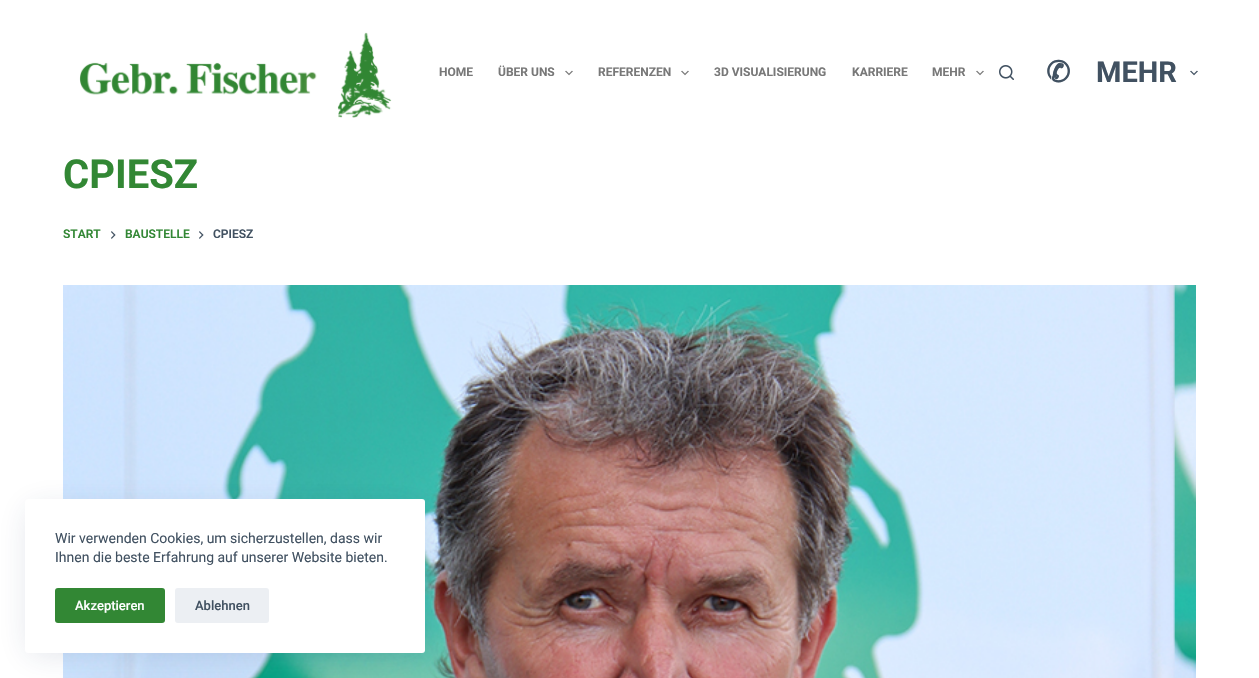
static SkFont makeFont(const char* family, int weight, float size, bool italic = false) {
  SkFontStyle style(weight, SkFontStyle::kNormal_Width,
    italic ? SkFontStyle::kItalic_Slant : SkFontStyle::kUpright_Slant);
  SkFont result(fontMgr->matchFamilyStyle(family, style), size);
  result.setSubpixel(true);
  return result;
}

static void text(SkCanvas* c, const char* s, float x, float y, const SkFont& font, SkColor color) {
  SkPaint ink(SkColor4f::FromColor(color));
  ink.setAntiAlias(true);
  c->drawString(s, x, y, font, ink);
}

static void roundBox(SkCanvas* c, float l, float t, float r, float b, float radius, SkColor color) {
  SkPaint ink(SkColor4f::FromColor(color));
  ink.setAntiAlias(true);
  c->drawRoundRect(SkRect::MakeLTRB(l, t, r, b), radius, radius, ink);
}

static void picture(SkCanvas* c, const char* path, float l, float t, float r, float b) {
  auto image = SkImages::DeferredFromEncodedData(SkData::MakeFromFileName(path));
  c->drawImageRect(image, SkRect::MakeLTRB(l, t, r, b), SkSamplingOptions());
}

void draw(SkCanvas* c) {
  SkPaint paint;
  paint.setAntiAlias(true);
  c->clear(0xffffffff);
  picture(c, "img_01.png", 79, 32, 392, 118);
  SkFont face1 = makeFont("Roboto", 700, 12);
  text(c, "HOME", 439, 76, face1, 0xff787878);
  text(c, "ÜBER UNS", 498, 76, face1, 0xff787878);
  picture(c, "img_02.png", 565, 70, 573, 76);
  text(c, "REFERENZEN", 598, 76, face1, 0xff787878);
  picture(c, "img_02.png", 681, 70, 689, 76);
  text(c, "3D VISUALISIERUNG", 714, 76, face1, 0xff787878);
  text(c, "KARRIERE", 852, 76, face1, 0xff787878);
  text(c, "MEHR", 932, 76, face1, 0xff787878);
  picture(c, "img_02.png", 976, 70, 984, 76);
  picture(c, "img_03.png", 999, 65, 1014, 80);
  SkFont face2 = makeFont("DejaVu Sans", 700, 29);
  text(c, "✆", 1046, 82, face2, 0xff415161);
  SkFont face3 = makeFont("Roboto", 700, 29);
  text(c, "MEHR", 1096, 82, face3, 0xff415161);
  picture(c, "img_04.png", 1190, 70, 1198, 76);
  SkFont face4 = makeFont("Roboto", 700, 40);
  text(c, "CPIESZ", 63, 188, face4, 0xff328734);
  SkFont face5 = makeFont("Roboto", 600, 12);
  text(c, "START", 63, 238, face5, 0xff328734);
  picture(c, "img_05.png", 111, 231, 116, 239);
  text(c, "BAUSTELLE", 125, 238, face5, 0xff328734);
  picture(c, "img_05.png", 199, 231, 204, 239);
  text(c, "CPIESZ", 213, 238, face5, 0xff415161);
  picture(c, "img_06.png", 63, 285, 1196, 678);
  paint.setColor(0x26223865);
  paint.setMaskFilter(SkMaskFilter::MakeBlur(kNormal_SkBlurStyle, 15));
  c->drawRect(SkRect::MakeLTRB(30, 509, 420, 653), paint);
  paint.setMaskFilter(nullptr);
  roundBox(c, 25, 499, 425, 653, 3, 0xffffffff);
  SkFont face6 = makeFont("Roboto", 400, 14);
  text(c, "Wir verwenden Cookies, um sicherzustellen, dass wir", 55, 543, face6, 0xff415161);
  text(c, "Ihnen die beste Erfahrung auf unserer Website bieten.", 55, 562, face6, 0xff415161);
  roundBox(c, 55, 588, 165, 623, 3, 0xff328734);
  SkFont face7 = makeFont("Roboto", 500, 13);
  text(c, "Akzeptieren", 75, 610, face7, 0xffffffff);
  roundBox(c, 175, 588, 269, 623, 3, 0xffeceff3);
  text(c, "Ablehnen", 195, 610, face7, 0xff415161);
}
